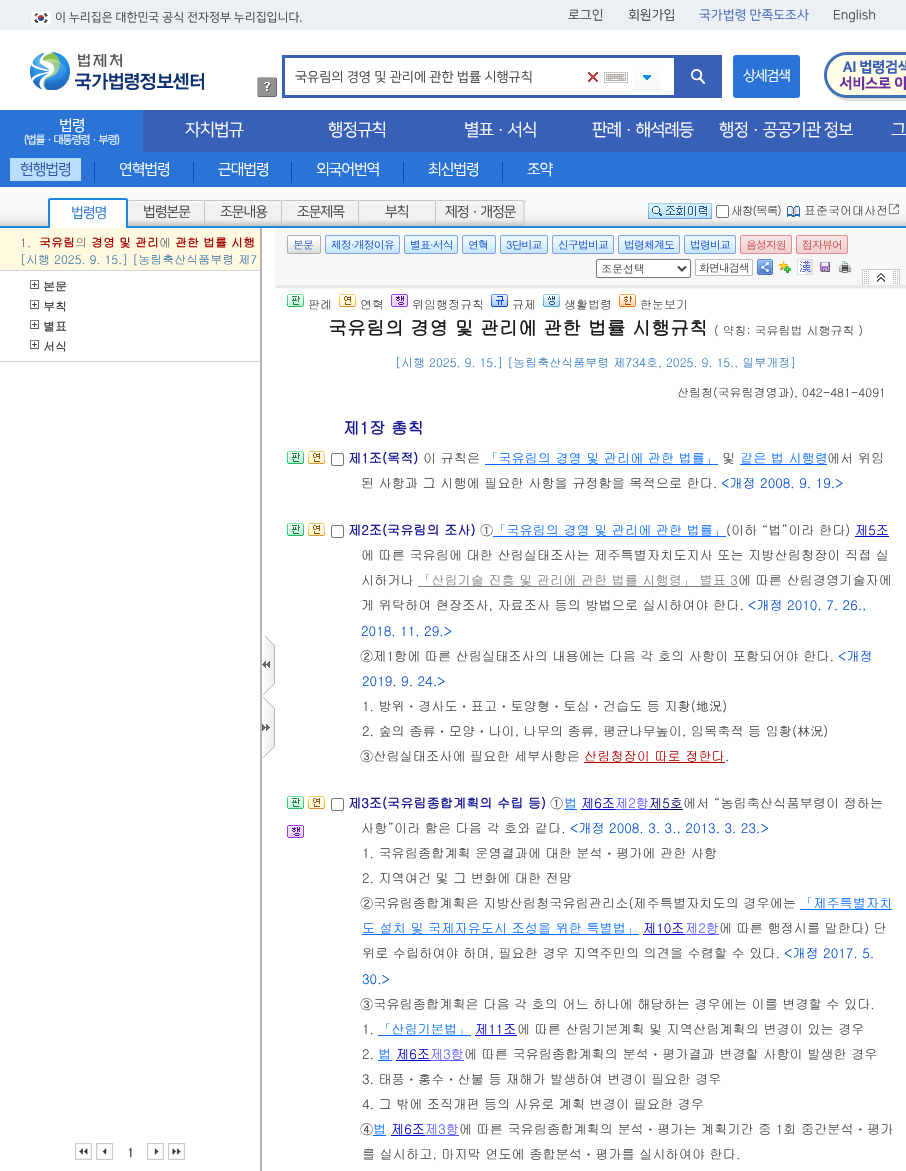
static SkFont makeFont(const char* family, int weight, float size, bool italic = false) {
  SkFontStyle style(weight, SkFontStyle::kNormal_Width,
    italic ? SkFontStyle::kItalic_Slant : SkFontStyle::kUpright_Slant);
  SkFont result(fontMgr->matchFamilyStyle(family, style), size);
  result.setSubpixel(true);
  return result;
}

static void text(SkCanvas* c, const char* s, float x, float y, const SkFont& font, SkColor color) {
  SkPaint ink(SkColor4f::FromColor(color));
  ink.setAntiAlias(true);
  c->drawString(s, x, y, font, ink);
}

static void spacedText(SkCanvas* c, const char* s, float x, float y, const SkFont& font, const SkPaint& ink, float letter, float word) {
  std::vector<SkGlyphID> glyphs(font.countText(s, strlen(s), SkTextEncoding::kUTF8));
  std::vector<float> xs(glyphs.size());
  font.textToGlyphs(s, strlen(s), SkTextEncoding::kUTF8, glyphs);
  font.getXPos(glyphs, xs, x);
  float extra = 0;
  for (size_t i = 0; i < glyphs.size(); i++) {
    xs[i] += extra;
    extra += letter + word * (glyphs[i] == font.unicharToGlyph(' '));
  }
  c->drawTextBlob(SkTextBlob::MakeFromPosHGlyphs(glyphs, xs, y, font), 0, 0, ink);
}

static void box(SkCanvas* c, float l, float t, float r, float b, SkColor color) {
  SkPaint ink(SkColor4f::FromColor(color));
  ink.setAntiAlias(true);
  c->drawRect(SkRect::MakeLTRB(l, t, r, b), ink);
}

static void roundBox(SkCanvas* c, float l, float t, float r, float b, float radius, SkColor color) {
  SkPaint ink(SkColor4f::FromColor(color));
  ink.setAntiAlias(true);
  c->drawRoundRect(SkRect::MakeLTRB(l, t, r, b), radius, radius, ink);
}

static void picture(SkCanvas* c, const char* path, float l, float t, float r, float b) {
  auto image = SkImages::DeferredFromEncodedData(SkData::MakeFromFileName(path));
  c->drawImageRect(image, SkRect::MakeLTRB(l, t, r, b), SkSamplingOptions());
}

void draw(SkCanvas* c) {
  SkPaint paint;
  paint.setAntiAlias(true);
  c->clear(0xffffffff);
  box(c, 0, 0, 906, 30, 0xffecf0f4);
  picture(c, "img_01.png", 30, 11, 51, 25);
  SkFont face1 = makeFont("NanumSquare", 400, 12);
  text(c, "이 누리집은 대한민국 공식 전자정부 누리집입니다.", 55, 21, face1, 0xff444444);
  SkFont face2 = makeFont("NanumSquare", 400, 13);
  text(c, "로그인", 568, 19, face2, 0xff444444);
  text(c, "회원가입", 628, 19, face2, 0xff444444);
  text(c, "국가법령 만족도조사", 699, 19, face2, 0xff4366ba);
  text(c, "English", 833, 19, face2, 0xff444444);
  picture(c, "img_02.png", 30, 52, 204, 90);
  picture(c, "img_03.png", 257, 77, 277, 97);
  paint.setStyle(SkPaint::kStroke_Style);
  paint.setStrokeWidth(3);
  paint.setColor(0xff3860b7);
  c->drawRect(SkRect::MakeLTRB(283.5f, 56.5f, 720.5f, 96.5f), paint);
  SkFont face3 = makeFont("NanumSquare", 400, 13.3f);
  text(c, "국유림의 경영 및 관리에 관한 법률 시행규칙", 295, 81, face3, 0xff444444);
  picture(c, "img_04.png", 588, 72, 598, 82);
  picture(c, "img_05.png", 604, 72, 628, 83);
  picture(c, "img_06.png", 634, 67, 660, 90);
  box(c, 674, 58, 719, 95, 0xff3860b7);
  picture(c, "img_07.png", 691, 69, 705, 84);
  picture(c, "img_08.png", 824, 51, 906, 101);
  box(c, 143, 110, 906, 152, 0xff3860b7);
  roundBox(c, 733, 55, 800, 98, 3, 0xff2974d6);
  SkFont face4 = makeFont("NanumSquare", 400, 14);
  paint.setStyle(SkPaint::kFill_Style);
  paint.setColor(0xffffffff);
  spacedText(c, "상세검색", 743, 80, face4, paint, -1, 0);
  box(c, 0, 152, 906, 187, 0xff2974d6);
  box(c, 10, 158, 81, 181, 0xffbbdeff);
  SkFont face5 = makeFont("NanumSquare", 400, 15);
  paint.setColor(0xff2f57a7);
  spacedText(c, "현행법령", 20, 174, face5, paint, -1, 0);
  box(c, 94, 162, 95, 183, 0xff1045bd);
  paint.setColor(0xffffffff);
  spacedText(c, "연혁법령", 119, 174, face5, paint, -1, 0);
  box(c, 193, 162, 194, 183, 0xff1045bd);
  spacedText(c, "근대법령", 218, 174, face5, paint, -1, 0);
  box(c, 291, 162, 292, 183, 0xff1045bd);
  spacedText(c, "외국어번역", 316, 174, face5, paint, -1, 0);
  box(c, 403, 162, 404, 183, 0xff1045bd);
  spacedText(c, "최신법령", 428, 174, face5, paint, -1, 0);
  box(c, 502, 162, 503, 183, 0xff1045bd);
  spacedText(c, "조약", 527, 174, face5, paint, -1, 0);
  box(c, 0, 110, 143, 152, 0xff2974d6);
  spacedText(c, "법령", 59, 130, face5, paint, -1, 0);
  SkFont face6 = makeFont("NanumSquare", 400, 11);
  spacedText(c, "(법률·대통령령·부령)", 24, 143, face6, paint, -1, 0);
  SkFont face7 = makeFont("NanumSquare", 400, 17);
  spacedText(c, "자치법규", 185, 135, face7, paint, -1, 0);
  spacedText(c, "행정규칙", 328, 135, face7, paint, -1, 0);
  spacedText(c, "별표·서식", 464, 135, face7, paint, -1, 0);
  spacedText(c, "판례·해석례등", 592, 135, face7, paint, -1, 0);
  spacedText(c, "행정·공공기관 정보", 719, 135, face7, paint, -1, 0);
  spacedText(c, "그", 891, 135, face7, paint, -1, 0);
  picture(c, "img_09.png", 0, 187, 906, 226);
  box(c, 0, 226, 906, 228, 0xff198cdc);
  picture(c, "img_18.png", 436, 201, 525, 225);
  picture(c, "img_14.png", 128, 202, 204, 225);
  paint.setStyle(SkPaint::kStroke_Style);
  paint.setStrokeWidth(1);
  paint.setColor(0xffc5c5c5);
  c->drawPath(SkPathBuilder().moveTo(127.5f, 200.5f).lineTo(204.5f, 200.5f).lineTo(204.5f, 225.5f).lineTo(127.5f, 225.5f).close().detach(), paint);
  picture(c, "img_16.png", 205, 201, 281, 225);
  c->drawPath(SkPathBuilder().moveTo(204.5f, 200.5f).lineTo(281.5f, 200.5f).lineTo(281.5f, 225.5f).lineTo(204.5f, 225.5f).close().detach(), paint);
  picture(c, "img_16.png", 282, 201, 358, 225);
  c->drawPath(SkPathBuilder().moveTo(281.5f, 200.5f).lineTo(358.5f, 200.5f).lineTo(358.5f, 225.5f).lineTo(281.5f, 225.5f).close().detach(), paint);
  picture(c, "img_16.png", 359, 201, 435, 225);
  c->drawPath(SkPathBuilder().moveTo(358.5f, 200.5f).lineTo(435.5f, 200.5f).lineTo(435.5f, 225.5f).lineTo(358.5f, 225.5f).close().detach(), paint);
  c->drawPath(SkPathBuilder().moveTo(435.5f, 200.5f).lineTo(524, 200.5f).lineTo(524, 225.5f).lineTo(435.5f, 225.5f).close().detach(), paint);
  picture(c, "img_10.png", 522, 200, 524, 202);
  picture(c, "img_11.png", 525, 200, 526, 202);
  box(c, 48, 198, 128, 200, 0xff198cdc);
  box(c, 48, 198, 50, 228, 0xff198cdc);
  picture(c, "img_12.png", 48, 198, 50, 200);
  box(c, 126, 198, 128, 228, 0xff198cdc);
  picture(c, "img_13.png", 126, 198, 128, 200);
  box(c, 50, 200, 126, 228, 0xffffffff);
  paint.setStyle(SkPaint::kFill_Style);
  paint.setColor(0xff2974d6);
  spacedText(c, "법령명", 71, 217, face4, paint, -1, 0);
  picture(c, "img_11.png", 128, 200, 129, 202);
  picture(c, "img_11.png", 203, 200, 204, 202);
  paint.setColor(0xff444444);
  spacedText(c, "법령본문", 143, 216, face4, paint, -1, 0);
  picture(c, "img_15.png", 204, 200, 206, 202);
  picture(c, "img_11.png", 280, 200, 281, 202);
  spacedText(c, "조문내용", 220, 216, face4, paint, -1, 0);
  picture(c, "img_15.png", 281, 200, 283, 202);
  picture(c, "img_11.png", 357, 200, 358, 202);
  spacedText(c, "조문제목", 297, 216, face4, paint, -1, 0);
  picture(c, "img_15.png", 358, 200, 360, 202);
  picture(c, "img_11.png", 434, 200, 435, 202);
  spacedText(c, "부칙", 385, 216, face4, paint, -1, 0);
  picture(c, "img_15.png", 435, 200, 437, 202);
  picture(c, "img_17.png", 524, 200, 525, 202);
  spacedText(c, "제정·개정문", 445, 216, face4, paint, -1, 0);
  picture(c, "img_19.png", 648, 203, 712, 219);
  paint.setColor(0xffffffff);
  c->drawRoundRect(SkRect::MakeLTRB(716.5f, 205.5f, 728.5f, 217.5f), 1.5f, 1.5f, paint);
  paint.setStyle(SkPaint::kStroke_Style);
  paint.setColor(0xff767676);
  c->drawRoundRect(SkRect::MakeLTRB(716.5f, 205.5f, 728.5f, 217.5f), 1.5f, 1.5f, paint);
  SkFont face8 = makeFont("Gulim", 400, 12);
  paint.setStyle(SkPaint::kFill_Style);
  paint.setColor(0xff444444);
  spacedText(c, "새창(목록)", 731, 215, face8, paint, -1.25f, 0);
  picture(c, "img_20.png", 787, 206, 800, 217);
  text(c, "표준국어대사전", 804, 215, face8, 0xff444444);
  picture(c, "img_21.png", 888, 203, 900, 215);
  box(c, 260, 228, 262, 1171, 0xffb4b4b4);
  picture(c, "img_22.png", 262, 636, 275, 695);
  picture(c, "img_23.png", 262, 697, 275, 758);
  box(c, 0, 361, 260, 362, 0xffd4d4d4);
  box(c, 0, 228, 260, 270, 0xfffff9df);
  text(c, "1.", 20, 247, face8, 0xff666666);
  SkFont face9 = makeFont("Gulim", 700, 12);
  text(c, "국유림", 39, 247, face9, 0xffa30200);
  text(c, "의", 75, 247, face8, 0xff666666);
  text(c, "경영 및 관리", 91, 247, face9, 0xffa30200);
  text(c, "에", 159, 247, face8, 0xff666666);
  text(c, "관한 법률 시행", 175, 247, face9, 0xffa30200);
  text(c, "[시행 2025. 9. 15.] [농림축산식품부령 제7", 20, 264, face8, 0xff3c7aac);
  box(c, 0, 270, 260, 271, 0xffd4d4d4);
  picture(c, "img_24.png", 30, 280, 39, 289);
  text(c, "본문", 43, 291, face9, 0xff444444);
  picture(c, "img_24.png", 30, 300, 39, 309);
  text(c, "부칙", 43, 311, face9, 0xff444444);
  picture(c, "img_24.png", 30, 320, 39, 329);
  text(c, "별표", 43, 331, face9, 0xff444444);
  picture(c, "img_24.png", 30, 340, 39, 349);
  text(c, "서식", 43, 351, face9, 0xff444444);
  picture(c, "img_25.png", 75, 1143, 92, 1160);
  picture(c, "img_26.png", 96, 1143, 113, 1160);
  text(c, "1", 127, 1157, face9, 0xff393939);
  picture(c, "img_27.png", 147, 1143, 164, 1160);
  picture(c, "img_28.png", 168, 1143, 185, 1160);
  box(c, 275, 228, 906, 289, 0xfff7f7f7);
  box(c, 275, 285, 906, 288, 0xffe8e8e8);
  picture(c, "img_29.png", 287, 236, 321, 253);
  paint.setStyle(SkPaint::kStroke_Style);
  paint.setColor(0xffafafaf);
  c->drawRoundRect(SkRect::MakeLTRB(287.5f, 235.5f, 320.5f, 253.5f), 1.5f, 1.5f, paint);
  SkFont face10 = makeFont("Dotum", 400, 11);
  paint.setStyle(SkPaint::kFill_Style);
  paint.setColor(0xff2b5bb4);
  spacedText(c, "본문", 293, 249, face10, paint, -1, 0);
  picture(c, "img_30.png", 325, 236, 400, 253);
  paint.setStyle(SkPaint::kStroke_Style);
  paint.setColor(0xff81a2df);
  c->drawRoundRect(SkRect::MakeLTRB(325.5f, 235.5f, 399.5f, 253.5f), 1.5f, 1.5f, paint);
  paint.setStyle(SkPaint::kFill_Style);
  paint.setColor(0xff1752ca);
  spacedText(c, "제정·개정이유", 331, 249, face10, paint, -1, 0);
  picture(c, "img_31.png", 404, 236, 458, 253);
  paint.setStyle(SkPaint::kStroke_Style);
  paint.setColor(0xff81a2df);
  c->drawRoundRect(SkRect::MakeLTRB(404.5f, 235.5f, 457.5f, 253.5f), 1.5f, 1.5f, paint);
  paint.setStyle(SkPaint::kFill_Style);
  paint.setColor(0xff1752ca);
  spacedText(c, "별표·서식", 410, 249, face10, paint, -1, 0);
  picture(c, "img_32.png", 462, 236, 496, 253);
  paint.setStyle(SkPaint::kStroke_Style);
  paint.setColor(0xff81a2df);
  c->drawRoundRect(SkRect::MakeLTRB(462.5f, 235.5f, 495.5f, 253.5f), 1.5f, 1.5f, paint);
  paint.setStyle(SkPaint::kFill_Style);
  paint.setColor(0xff1752ca);
  spacedText(c, "연혁", 468, 249, face10, paint, -1, 0);
  picture(c, "img_33.png", 500, 236, 548, 253);
  paint.setStyle(SkPaint::kStroke_Style);
  paint.setColor(0xff81a2df);
  c->drawRoundRect(SkRect::MakeLTRB(500.5f, 235.5f, 547.5f, 253.5f), 1.5f, 1.5f, paint);
  paint.setStyle(SkPaint::kFill_Style);
  paint.setColor(0xff1752ca);
  spacedText(c, "3단비교", 506, 249, face10, paint, -1, 0);
  picture(c, "img_34.png", 552, 236, 614, 253);
  paint.setStyle(SkPaint::kStroke_Style);
  paint.setColor(0xff81a2df);
  c->drawRoundRect(SkRect::MakeLTRB(552.5f, 235.5f, 613.5f, 253.5f), 1.5f, 1.5f, paint);
  paint.setStyle(SkPaint::kFill_Style);
  paint.setColor(0xff1752ca);
  spacedText(c, "신구법비교", 558, 249, face10, paint, -1, 0);
  picture(c, "img_34.png", 618, 236, 680, 253);
  paint.setStyle(SkPaint::kStroke_Style);
  paint.setColor(0xff81a2df);
  c->drawRoundRect(SkRect::MakeLTRB(618.5f, 235.5f, 679.5f, 253.5f), 1.5f, 1.5f, paint);
  paint.setStyle(SkPaint::kFill_Style);
  paint.setColor(0xff1752ca);
  spacedText(c, "법령체계도", 624, 249, face10, paint, -1, 0);
  picture(c, "img_35.png", 684, 236, 736, 253);
  paint.setStyle(SkPaint::kStroke_Style);
  paint.setColor(0xff81a2df);
  c->drawRoundRect(SkRect::MakeLTRB(684.5f, 235.5f, 735.5f, 253.5f), 1.5f, 1.5f, paint);
  paint.setStyle(SkPaint::kFill_Style);
  paint.setColor(0xff1752ca);
  spacedText(c, "법령비교", 690, 249, face10, paint, -1, 0);
  c->save();
  c->clipPath(SkPathBuilder().moveTo(742, 235).lineTo(790, 235).cubicTo(791, 235, 792, 236, 792, 237).lineTo(792, 252).cubicTo(792, 253, 791, 254, 790, 254).lineTo(742, 254).cubicTo(741, 254, 740, 253, 740, 252).lineTo(740, 237).cubicTo(740, 236, 741, 235, 742, 235).close().detach(), true);
  {
    const SkColor colors[] = {0xfff8e5e6, 0xffefcece};
    const float stops[] = {0, 1};
    const SkPoint ends[] = {{766, 236}, {766, 253}};
    paint.setShader(SkGradientShader::MakeLinear(ends, colors, stops, 2, SkTileMode::kClamp));
    paint.setAlpha(255);
  }
  c->drawRect(SkRect::MakeLTRB(740, 236, 792, 253), paint);
  c->restore();
  paint.setStyle(SkPaint::kStroke_Style);
  paint.setShader(nullptr);
  paint.setColor(0xffe28d8d);
  c->drawRoundRect(SkRect::MakeLTRB(740.5f, 235.5f, 791.5f, 253.5f), 1.5f, 1.5f, paint);
  paint.setStyle(SkPaint::kFill_Style);
  paint.setColor(0xffc74d4d);
  spacedText(c, "음성지원", 746, 249, face10, paint, -1, 0);
  c->save();
  c->clipPath(SkPathBuilder().moveTo(798, 235).lineTo(846, 235).cubicTo(847, 235, 848, 236, 848, 237).lineTo(848, 252).cubicTo(848, 253, 847, 254, 846, 254).lineTo(798, 254).cubicTo(797, 254, 796, 253, 796, 252).lineTo(796, 237).cubicTo(796, 236, 797, 235, 798, 235).close().detach(), true);
  {
    const SkColor colors[] = {0xfff8e5e6, 0xffefcece};
    const float stops[] = {0, 1};
    const SkPoint ends[] = {{822, 236}, {822, 253}};
    paint.setShader(SkGradientShader::MakeLinear(ends, colors, stops, 2, SkTileMode::kClamp));
    paint.setAlpha(255);
  }
  c->drawRect(SkRect::MakeLTRB(796, 236, 848, 253), paint);
  c->restore();
  paint.setStyle(SkPaint::kStroke_Style);
  paint.setShader(nullptr);
  paint.setColor(0xffe28d8d);
  c->drawRoundRect(SkRect::MakeLTRB(796.5f, 235.5f, 847.5f, 253.5f), 1.5f, 1.5f, paint);
  paint.setStyle(SkPaint::kFill_Style);
  paint.setColor(0xffc74d4d);
  spacedText(c, "점자뷰어", 802, 249, face10, paint, -1, 0);
  paint.setColor(0xffffffff);
  c->drawRoundRect(SkRect::MakeLTRB(596.5f, 259.5f, 690.5f, 277.5f), 1.5f, 1.5f, paint);
  paint.setStyle(SkPaint::kStroke_Style);
  paint.setColor(0xff767676);
  c->drawRoundRect(SkRect::MakeLTRB(596.5f, 259.5f, 690.5f, 277.5f), 1.5f, 1.5f, paint);
  paint.setStrokeWidth(2);
  paint.setColor(0xff444444);
  c->drawPath(SkPathBuilder().moveTo(678, 266.5f).lineTo(682, 270.5f).lineTo(686, 266.5f).detach(), paint);
  text(c, "조문선택", 601, 273, face10, 0xff444444);
  paint.setStyle(SkPaint::kFill_Style);
  paint.setColor(0xffffffff);
  c->drawRoundRect(SkRect::MakeLTRB(695.5f, 259.5f, 752.5f, 275.5f), 0.5f, 0.5f, paint);
  paint.setStyle(SkPaint::kStroke_Style);
  paint.setStrokeWidth(1);
  paint.setColor(0xffbbbbbb);
  c->drawRoundRect(SkRect::MakeLTRB(695.5f, 259.5f, 752.5f, 275.5f), 0.5f, 0.5f, paint);
  paint.setStyle(SkPaint::kFill_Style);
  paint.setColor(0xff444444);
  spacedText(c, "화면내검색", 699, 272, face10, paint, -1, 0);
  picture(c, "img_36.png", 757, 259, 773, 275);
  picture(c, "img_37.png", 779, 261, 791, 273);
  picture(c, "img_38.png", 797, 259, 813, 275);
  picture(c, "img_39.png", 820, 262, 830, 272);
  picture(c, "img_40.png", 839, 261, 851, 273);
  picture(c, "img_41.png", 862, 269, 900, 285);
  picture(c, "img_42.png", 287, 294, 304, 307);
  text(c, "판례", 308, 309, face8, 0xff444444);
  picture(c, "img_43.png", 339, 294, 356, 307);
  text(c, "연혁", 360, 309, face8, 0xff444444);
  picture(c, "img_44.png", 391, 294, 408, 307);
  text(c, "위임행정규칙", 412, 309, face8, 0xff444444);
  picture(c, "img_45.png", 491, 294, 508, 307);
  text(c, "규제", 512, 309, face8, 0xff444444);
  picture(c, "img_46.png", 543, 294, 560, 307);
  text(c, "생활법령", 564, 309, face8, 0xff444444);
  picture(c, "img_47.png", 619, 294, 636, 307);
  text(c, "한눈보기", 640, 309, face8, 0xff444444);
  SkFont face11 = makeFont("Gulim", 700, 19);
  text(c, "국유림의 경영 및 관리에 관한 법률 시행규칙", 328, 335, face11, 0xff1c1c1c);
  text(c, "( 약칭: 국유림법 시행규칙 )", 714, 335, face8, 0xff444444);
  text(c, "[시행 2025. 9. 15.] [농림축산식품부령 제734호, 2025. 9. 15., 일부개정]", 395, 367, face8, 0xff3c7fbc);
  text(c, "산림청(국유림경영과), 042-481-4091", 677, 397, face8, 0xff444444);
  SkFont face12 = makeFont("Gulim", 700, 16.5f);
  text(c, "제1장 총칙", 343, 434, face12, 0xff151594);
  picture(c, "img_42.png", 287, 451, 304, 464);
  picture(c, "img_43.png", 308, 451, 325, 464);
  paint.setStyle(SkPaint::kStroke_Style);
  paint.setColor(0xff767676);
  c->drawRoundRect(SkRect::MakeLTRB(331.5f, 453.5f, 343.5f, 465.5f), 1.5f, 1.5f, paint);
  SkFont face13 = makeFont("Gulim", 700, 13.2f);
  text(c, "제1조(목적)", 348, 463, face13, 0xff151594);
  SkFont face14 = makeFont("Gulim", 400, 13.2f);
  text(c, "이 규칙은", 423, 463, face14, 0xff444444);
  box(c, 485, 464, 718, 465, 0xff086dff);
  text(c, "「국유림의 경영 및 관리에 관한 법률」", 485, 463, face14, 0xff086dff);
  text(c, "및", 722, 463, face14, 0xff444444);
  text(c, "같은 법 시행령", 740, 463, face14, 0xff086dff);
  box(c, 740, 464, 827, 465, 0xff086dff);
  text(c, "에서 위임", 827, 463, face14, 0xff444444);
  text(c, "된 사항과 그 시행에 필요한 사항을 규정함을 목적으로 한다.", 361, 488, face14, 0xff444444);
  text(c, "<개정 2008. 9. 19.>", 721, 488, face14, 0xff024fce);
  picture(c, "img_42.png", 287, 523, 304, 536);
  picture(c, "img_43.png", 308, 523, 325, 536);
  c->drawRoundRect(SkRect::MakeLTRB(331.5f, 525.5f, 343.5f, 537.5f), 1.5f, 1.5f, paint);
  text(c, "제2조(국유림의 조사)", 348, 535, face13, 0xff151594);
  text(c, "①", 480, 535, face14, 0xff444444);
  box(c, 493, 536, 726, 537, 0xff086dff);
  text(c, "「국유림의 경영 및 관리에 관한 법률」", 493, 535, face14, 0xff086dff);
  text(c, "(이하 “법”이라 한다)", 726, 535, face14, 0xff444444);
  text(c, "제5조", 855, 535, face14, 0xff0000cd);
  box(c, 855, 536, 889, 537, 0xff0000cd);
  text(c, "에 따른 국유림에 대한 산림실태조사는 제주특별자치도지사 또는 지방산림청장이 직접 실", 361, 560, face14, 0xff444444);
  text(c, "시하거나", 361, 585, face14, 0xff444444);
  box(c, 418, 586, 738, 587, 0xff808080);
  text(c, "「산림기술 진흥 및 관리에 관한 법률 시행령」 별표 3", 418, 585, face14, 0xff808080);
  text(c, "에 따른 산림경영기술자에", 738, 585, face14, 0xff444444);
  text(c, "게 위탁하여 현장조사, 자료조사 등의 방법으로 실시하여야 한다.", 361, 610, face14, 0xff444444);
  text(c, "<개정 2010. 7. 26.,", 748, 610, face14, 0xff024fce);
  text(c, "2018. 11. 29.>", 361, 636, face14, 0xff024fce);
  text(c, "②제1항에 따른 산림실태조사의 내용에는 다음 각 호의 사항이 포함되어야 한다.", 360, 661, face14, 0xff444444);
  text(c, "<개정", 838, 661, face14, 0xff024fce);
  text(c, "2019. 9. 24.>", 362, 686, face14, 0xff024fce);
  text(c, "1. 방위ㆍ경사도ㆍ표고ㆍ토양형ㆍ토심ㆍ건습도 등 지황(地況)", 362, 711, face14, 0xff444444);
  text(c, "2. 숲의 종류ㆍ모양ㆍ나이, 나무의 종류, 평균나무높이, 임목축적 등 임황(林況)", 362, 736, face14, 0xff444444);
  text(c, "③산림실태조사에 필요한 세부사항은", 360, 761, face14, 0xff444444);
  text(c, "산림청장이 따로 정한다", 584, 761, face14, 0xffb30000);
  box(c, 584, 762, 725, 763, 0xffb30000);
  text(c, ".", 725, 761, face14, 0xff444444);
  picture(c, "img_42.png", 287, 796, 304, 809);
  picture(c, "img_43.png", 308, 796, 325, 809);
  picture(c, "img_44.png", 287, 825, 304, 838);
  c->drawRoundRect(SkRect::MakeLTRB(331.5f, 798.5f, 343.5f, 810.5f), 1.5f, 1.5f, paint);
  text(c, "제3조(국유림종합계획의 수립 등)", 348, 808, face13, 0xff151594);
  text(c, "①", 550, 808, face14, 0xff444444);
  text(c, "법", 564, 808, face14, 0xff086dff);
  box(c, 564, 809, 577, 810, 0xff086dff);
  text(c, "제6조", 581, 808, face14, 0xff0000cd);
  box(c, 581, 809, 615, 810, 0xff0000cd);
  text(c, "제2항", 615, 808, face14, 0xff5a5aff);
  box(c, 615, 809, 649, 810, 0xff5a5aff);
  text(c, "제5호", 649, 808, face14, 0xff000069);
  box(c, 649, 809, 683, 810, 0xff000069);
  text(c, "에서 “농림축산식품부령이 정하는", 683, 808, face14, 0xff444444);
  text(c, "사항”이라 함은 다음 각 호와 같다.", 361, 833, face14, 0xff444444);
  text(c, "<개정 2008. 3. 3., 2013. 3. 23.>", 570, 833, face14, 0xff024fce);
  text(c, "1. 국유림종합계획 운영결과에 대한 분석ㆍ평가에 관한 사항", 362, 858, face14, 0xff444444);
  text(c, "2. 지역여건 및 그 변화에 대한 전망", 362, 883, face14, 0xff444444);
  text(c, "②국유림종합계획은 지방산림청국유림관리소(제주특별자치도의 경우에는", 360, 908, face14, 0xff444444);
  text(c, "「제주특별자치", 800, 908, face14, 0xff086dff);
  box(c, 800, 909, 892, 910, 0xff086dff);
  box(c, 362, 934, 639, 935, 0xff086dff);
  text(c, "도 설치 및 국제자유도시 조성을 위한 특별법」", 362, 933, face14, 0xff086dff);
  text(c, "제10조", 643, 933, face14, 0xff0000cd);
  box(c, 643, 934, 685, 935, 0xff0000cd);
  text(c, "제2항", 685, 933, face14, 0xff5a5aff);
  box(c, 685, 934, 719, 935, 0xff5a5aff);
  text(c, "에 따른 행정시를 말한다) 단", 719, 933, face14, 0xff444444);
  text(c, "위로 수립하여야 하며, 필요한 경우 지역주민의 의견을 수렴할 수 있다.", 362, 958, face14, 0xff444444);
  text(c, "<개정 2017. 5.", 784, 958, face14, 0xff024fce);
  text(c, "30.>", 362, 984, face14, 0xff024fce);
  text(c, "③국유림종합계획은 다음 각 호의 어느 하나에 해당하는 경우에는 이를 변경할 수 있다.", 360, 1009, face14, 0xff444444);
  text(c, "1.", 362, 1034, face14, 0xff444444);
  box(c, 378, 1035, 471, 1036, 0xff086dff);
  text(c, "「산림기본법」", 378, 1034, face14, 0xff086dff);
  text(c, "제11조", 475, 1034, face14, 0xff0000cd);
  box(c, 475, 1035, 517, 1036, 0xff0000cd);
  text(c, "에 따른 산림기본계획 및 지역산림계획의 변경이 있는 경우", 517, 1034, face14, 0xff444444);
  text(c, "2.", 362, 1059, face14, 0xff444444);
  text(c, "법", 378, 1059, face14, 0xff086dff);
  box(c, 378, 1060, 392, 1061, 0xff086dff);
  text(c, "제6조", 396, 1059, face14, 0xff0000cd);
  box(c, 396, 1060, 430, 1061, 0xff0000cd);
  text(c, "제3항", 430, 1059, face14, 0xff5a5aff);
  box(c, 430, 1060, 464, 1061, 0xff5a5aff);
  text(c, "에 따른 국유림종합계획의 분석ㆍ평가결과 변경할 사항이 발생한 경우", 464, 1059, face14, 0xff444444);
  text(c, "3. 태풍ㆍ홍수ㆍ산불 등 재해가 발생하여 변경이 필요한 경우", 362, 1084, face14, 0xff444444);
  text(c, "4. 그 밖에 조직개편 등의 사유로 계획 변경이 필요한 경우", 362, 1109, face14, 0xff444444);
  text(c, "④", 360, 1134, face14, 0xff444444);
  text(c, "법", 373, 1134, face14, 0xff086dff);
  box(c, 373, 1135, 386, 1136, 0xff086dff);
  text(c, "제6조", 391, 1134, face14, 0xff0000cd);
  box(c, 391, 1135, 425, 1136, 0xff0000cd);
  text(c, "제3항", 425, 1134, face14, 0xff5a5aff);
  box(c, 425, 1135, 459, 1136, 0xff5a5aff);
  text(c, "에 따른 국유림종합계획의 분석ㆍ평가는 계획기간 중 1회 중간분석ㆍ평가", 459, 1134, face14, 0xff444444);
  text(c, "를 실시하고, 마지막 연도에 종합분석ㆍ평가를 실시하여야 한다.", 362, 1159, face14, 0xff444444);
}
